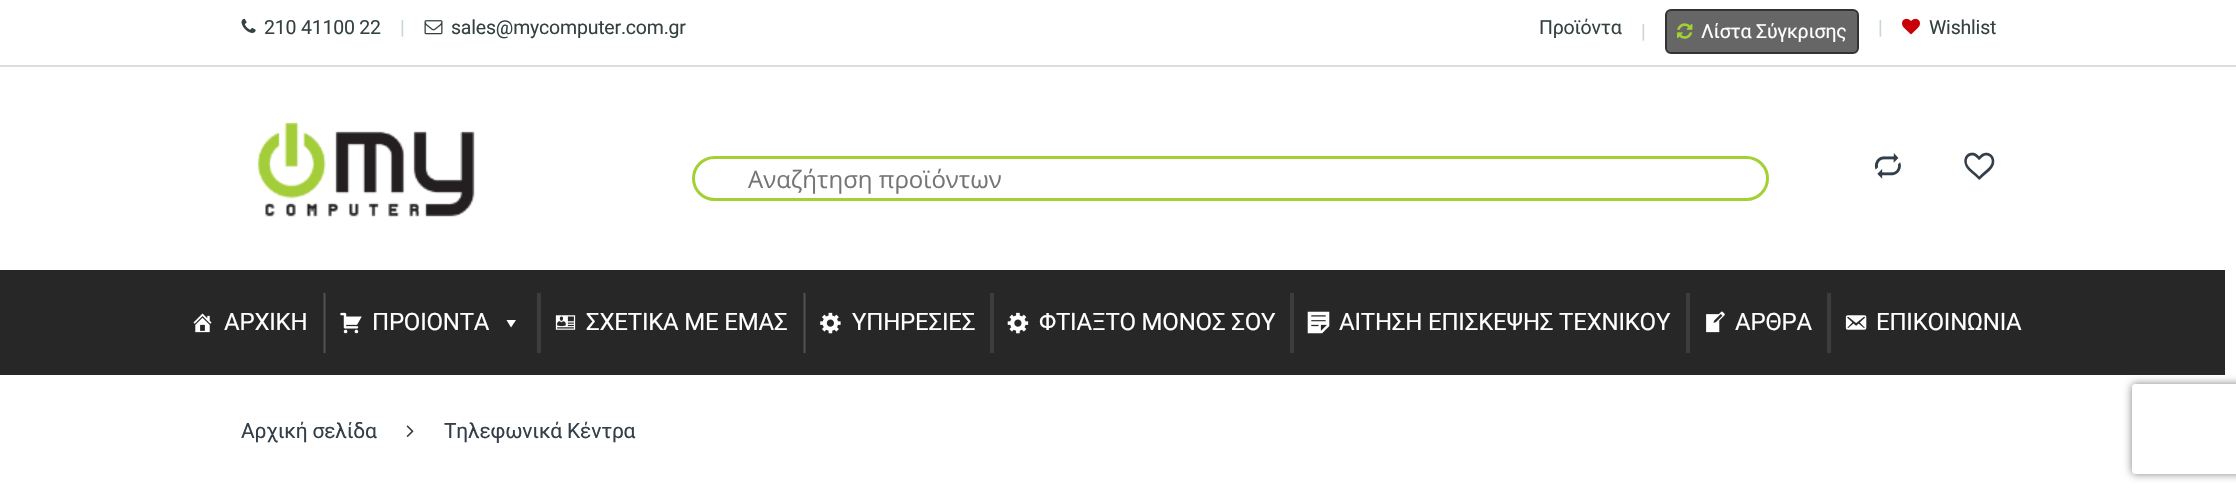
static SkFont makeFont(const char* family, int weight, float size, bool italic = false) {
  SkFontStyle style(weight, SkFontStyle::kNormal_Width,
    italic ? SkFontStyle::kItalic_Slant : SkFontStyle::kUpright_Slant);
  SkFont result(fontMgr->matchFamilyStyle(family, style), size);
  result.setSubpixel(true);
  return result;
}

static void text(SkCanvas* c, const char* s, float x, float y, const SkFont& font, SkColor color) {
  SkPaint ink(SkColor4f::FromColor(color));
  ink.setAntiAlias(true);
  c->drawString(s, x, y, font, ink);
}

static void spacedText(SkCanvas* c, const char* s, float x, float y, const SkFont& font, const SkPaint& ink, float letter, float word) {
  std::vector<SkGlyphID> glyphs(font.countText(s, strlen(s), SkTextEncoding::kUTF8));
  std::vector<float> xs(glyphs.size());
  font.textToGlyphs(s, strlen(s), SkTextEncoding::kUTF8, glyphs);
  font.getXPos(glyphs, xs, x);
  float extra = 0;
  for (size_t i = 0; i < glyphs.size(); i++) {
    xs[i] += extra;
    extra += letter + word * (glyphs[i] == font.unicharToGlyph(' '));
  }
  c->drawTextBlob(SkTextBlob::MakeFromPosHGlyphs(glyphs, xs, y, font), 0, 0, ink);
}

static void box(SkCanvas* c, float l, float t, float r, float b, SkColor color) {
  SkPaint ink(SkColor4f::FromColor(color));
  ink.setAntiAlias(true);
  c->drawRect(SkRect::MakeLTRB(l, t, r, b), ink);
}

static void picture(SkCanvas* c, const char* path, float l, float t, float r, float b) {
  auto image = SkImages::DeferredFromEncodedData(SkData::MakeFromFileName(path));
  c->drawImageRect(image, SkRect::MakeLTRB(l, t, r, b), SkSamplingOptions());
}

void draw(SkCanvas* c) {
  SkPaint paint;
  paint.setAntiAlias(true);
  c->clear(0xffffffff);
  box(c, 0, 65, 2236, 67, 0xffdddddd);
  picture(c, "img_01.png", 241, 18, 256, 33);
  SkFont face1 = makeFont("Roboto", 400, 19.5f);
  paint.setColor(0xff334141);
  spacedText(c, "210 41100 22", 264, 34, face1, paint, -0.2f, 0);
  paint.setColor(0xffcad5d5);
  spacedText(c, "|", 400, 34, face1, paint, -0.2f, 0);
  picture(c, "img_02.png", 424, 20, 443, 35);
  paint.setColor(0xff334141);
  spacedText(c, "sales@mycomputer.com.gr", 451, 34, face1, paint, -0.2f, 0);
  spacedText(c, "Προϊόντα", 1539, 34, face1, paint, -0.2f, 0);
  paint.setColor(0xffcad5d5);
  spacedText(c, "|", 1641, 38, face1, paint, -0.2f, 0);
  paint.setColor(0xff666666);
  c->drawRoundRect(SkRect::MakeLTRB(1666, 10, 1858, 53), 5, 5, paint);
  paint.setStyle(SkPaint::kStroke_Style);
  paint.setStrokeWidth(2);
  paint.setColor(0xff333333);
  c->drawRoundRect(SkRect::MakeLTRB(1666, 10, 1858, 53), 5, 5, paint);
  picture(c, "img_03.png", 1677, 23, 1693, 39);
  paint.setStyle(SkPaint::kFill_Style);
  paint.setColor(0xffffffff);
  spacedText(c, "Λίστα Σύγκρισης", 1701, 38, face1, paint, -0.2f, 0);
  paint.setColor(0xffcad5d5);
  spacedText(c, "|", 1878, 34, face1, paint, -0.2f, 0);
  picture(c, "img_04.png", 1902, 18, 1920, 35);
  paint.setColor(0xff334141);
  spacedText(c, "Wishlist", 1929, 34, face1, paint, -0.2f, 0);
  picture(c, "img_05.png", 257, 122, 475, 217);
  paint.setStyle(SkPaint::kStroke_Style);
  paint.setStrokeWidth(3);
  paint.setColor(0xffa3d133);
  c->drawRoundRect(SkRect::MakeLTRB(693.5f, 157.5f, 1767.5f, 199.5f), 21, 21, paint);
  SkFont face2 = makeFont("Open Sans", 400, 24);
  text(c, "Αναζήτηση προϊόντων", 748, 188, face2, 0xff757575);
  picture(c, "img_06.png", 1874, 153, 1901, 179);
  picture(c, "img_07.png", 1964, 152, 1995, 180);
  box(c, 0, 270, 2225, 375, 0xff272727);
  box(c, 803, 293, 804, 353, 0xff3d3d3d);
  box(c, 323, 293, 324, 353, 0xff3d3d3d);
  picture(c, "img_08.png", 193, 313, 212, 333);
  SkFont face3 = makeFont("Roboto", 400, 24);
  paint.setStyle(SkPaint::kFill_Style);
  paint.setColor(0xffffffff);
  spacedText(c, "ΑΡΧΙΚΗ", 224, 330, face3, paint, -0.2f, 0);
  box(c, 325, 293, 326, 353, 0xff3d3d3d);
  box(c, 324, 293, 325, 353, 0xff505050);
  picture(c, "img_09.png", 340, 312, 362, 334);
  spacedText(c, "ΠΡΟΙΟΝΤΑ", 372, 330, face3, paint, -0.2f, 0);
  c->drawPath(SkPathBuilder().moveTo(516, 320).lineTo(511, 327.5f).lineTo(506.5f, 320).close().detach(), paint);
  box(c, 537, 293, 541, 353, 0xff3d3d3d);
  picture(c, "img_10.png", 555, 315, 576, 330);
  spacedText(c, "ΣΧΕΤΙΚΑ ΜΕ ΕΜΑΣ", 586, 330, face3, paint, -0.2f, 0);
  box(c, 805, 293, 806, 353, 0xff3d3d3d);
  box(c, 804, 293, 805, 353, 0xff505050);
  picture(c, "img_11.png", 820, 312, 841, 334);
  spacedText(c, "ΥΠΗΡΕΣΙΕΣ", 852, 330, face3, paint, -0.2f, 0);
  box(c, 990, 293, 994, 353, 0xff3d3d3d);
  picture(c, "img_12.png", 1007, 312, 1029, 334);
  spacedText(c, "ΦΤΙΑΞΤΟ ΜΟΝΟΣ ΣΟΥ", 1039, 330, face3, paint, -0.2f, 0);
  box(c, 1290, 293, 1294, 353, 0xff3d3d3d);
  picture(c, "img_13.png", 1307, 311, 1330, 334);
  spacedText(c, "ΑΙΤΗΣΗ ΕΠΙΣΚΕΨΗΣ ΤΕΧΝΙΚΟΥ", 1339, 330, face3, paint, -0.2f, 0);
  box(c, 1686, 293, 1690, 353, 0xff3d3d3d);
  picture(c, "img_14.png", 1706, 311, 1725, 333);
  spacedText(c, "ΑΡΘΡΑ", 1735, 330, face3, paint, -0.2f, 0);
  box(c, 1827, 293, 1831, 353, 0xff3d3d3d);
  picture(c, "img_15.png", 1845, 315, 1867, 330);
  spacedText(c, "ΕΠΙΚΟΙΝΩΝΙΑ", 1876, 330, face3, paint, -0.2f, 0);
  SkFont face4 = makeFont("Roboto", 400, 21);
  paint.setColor(0xff333e48);
  spacedText(c, "Αρχική σελίδα", 241, 438, face4, paint, -0.2f, 0);
  picture(c, "img_16.png", 406, 425, 414, 437);
  spacedText(c, "Τηλεφωνικά Κέντρα", 444, 438, face4, paint, -0.2f, 0);
  c->save();
  c->clipPath(SkPathBuilder(SkPathFillType::kEvenOdd).moveTo(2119, 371).lineTo(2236, 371).lineTo(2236, 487).lineTo(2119, 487).close().moveTo(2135, 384).lineTo(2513, 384).cubicTo(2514.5f, 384, 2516, 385.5f, 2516, 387).lineTo(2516, 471).cubicTo(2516, 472.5f, 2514.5f, 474, 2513, 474).lineTo(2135, 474).cubicTo(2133.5f, 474, 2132, 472.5f, 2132, 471).lineTo(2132, 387).cubicTo(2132, 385.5f, 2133.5f, 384, 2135, 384).close().detach(), true);
  paint.setColor(0xff808080);
  paint.setMaskFilter(SkMaskFilter::MakeBlur(kNormal_SkBlurStyle, 4));
  c->drawRoundRect(SkRect::MakeLTRB(2132, 384, 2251, 474), 3, 3, paint);
  paint.setMaskFilter(nullptr);
  c->restore();
}
